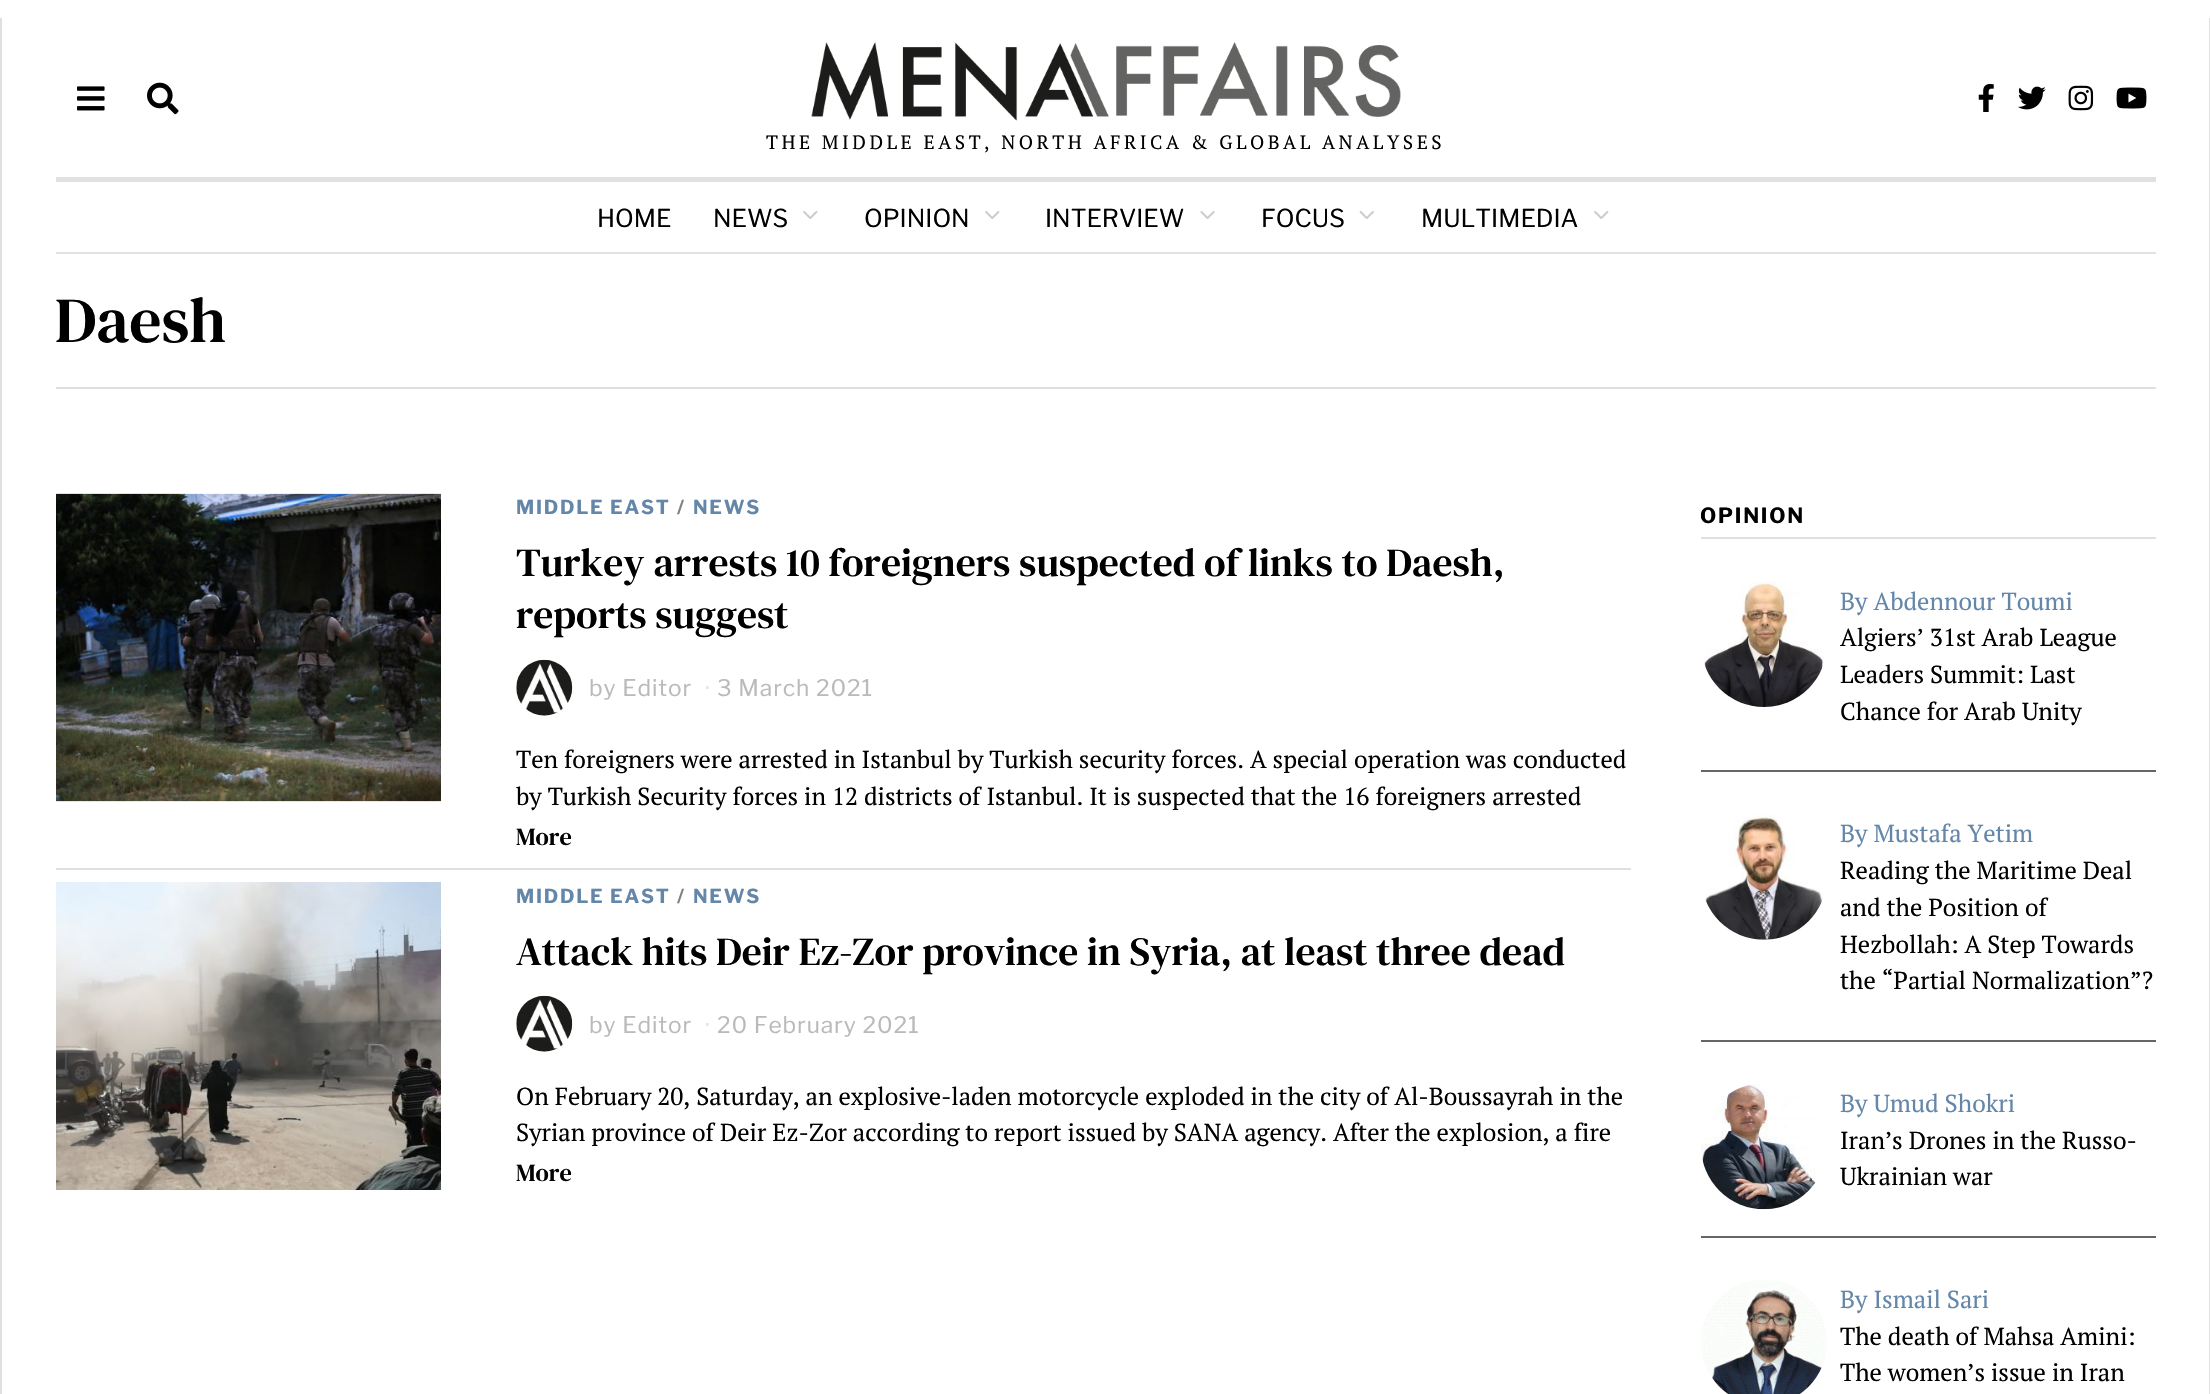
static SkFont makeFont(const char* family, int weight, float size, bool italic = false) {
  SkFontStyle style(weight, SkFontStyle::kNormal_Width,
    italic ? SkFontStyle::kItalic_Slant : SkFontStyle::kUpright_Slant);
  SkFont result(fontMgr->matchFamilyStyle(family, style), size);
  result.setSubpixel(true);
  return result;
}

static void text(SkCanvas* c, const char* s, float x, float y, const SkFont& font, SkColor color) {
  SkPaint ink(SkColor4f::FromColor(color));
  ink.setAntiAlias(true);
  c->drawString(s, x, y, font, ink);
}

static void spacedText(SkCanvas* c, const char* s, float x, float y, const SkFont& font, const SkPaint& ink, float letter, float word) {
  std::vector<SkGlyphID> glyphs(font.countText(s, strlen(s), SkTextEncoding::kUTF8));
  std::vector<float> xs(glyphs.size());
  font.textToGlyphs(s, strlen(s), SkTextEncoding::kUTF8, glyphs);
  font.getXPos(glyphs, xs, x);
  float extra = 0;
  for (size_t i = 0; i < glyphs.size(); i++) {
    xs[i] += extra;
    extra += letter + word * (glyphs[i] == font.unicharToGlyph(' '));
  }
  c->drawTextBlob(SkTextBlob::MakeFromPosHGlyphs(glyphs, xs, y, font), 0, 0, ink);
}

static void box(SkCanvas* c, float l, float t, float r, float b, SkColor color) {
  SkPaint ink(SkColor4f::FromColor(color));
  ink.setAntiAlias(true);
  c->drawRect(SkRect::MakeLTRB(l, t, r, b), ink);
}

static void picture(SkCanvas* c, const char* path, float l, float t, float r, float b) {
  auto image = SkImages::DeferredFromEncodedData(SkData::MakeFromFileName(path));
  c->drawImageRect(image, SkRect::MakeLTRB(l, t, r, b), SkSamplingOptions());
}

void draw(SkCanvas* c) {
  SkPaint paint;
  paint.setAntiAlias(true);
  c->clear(0xffffffff);
  box(c, 2209, 18, 2210, 1394, 0xffe0e0e0);
  box(c, 0, 18, 2, 1394, 0xffe0e0e0);
  picture(c, "img_01.png", 77, 86, 105, 111);
  picture(c, "img_02.png", 147, 82, 179, 115);
  picture(c, "img_03.png", 1978, 84, 1994, 112);
  picture(c, "img_04.png", 2018, 86, 2046, 110);
  picture(c, "img_05.png", 2068, 85, 2094, 111);
  picture(c, "img_06.png", 2116, 87, 2147, 109);
  picture(c, "img_07.png", 811, 42, 1401, 121);
  SkFont face1 = makeFont("PT Serif", 400, 19.25f);
  paint.setColor(0xff000000);
  spacedText(c, "THE MIDDLE EAST, NORTH AFRICA & GLOBAL ANALYSES", 766, 149, face1, paint, 3.5f, 0);
  box(c, 56, 177, 2156, 182, 0xffe1e1e1);
  box(c, 56, 252, 2156, 254, 0xffe1e1e1);
  SkFont face2 = makeFont("Libre Franklin", 400, 24.5f);
  text(c, "HOME", 597, 227, face2, 0xff000000);
  text(c, "NEWS", 713, 227, face2, 0xff000000);
  picture(c, "img_08.png", 803, 211, 818, 219);
  text(c, "OPINION", 864, 227, face2, 0xff000000);
  picture(c, "img_08.png", 985, 211, 1000, 219);
  text(c, "INTERVIEW", 1045, 227, face2, 0xff000000);
  picture(c, "img_09.png", 1200, 211, 1215, 219);
  text(c, "FOCUS", 1261, 227, face2, 0xff000000);
  picture(c, "img_10.png", 1359, 211, 1374, 219);
  text(c, "MULTIMEDIA", 1421, 227, face2, 0xff000000);
  picture(c, "img_08.png", 1594, 211, 1609, 219);
  box(c, 56, 387, 2156, 389, 0xffe0e0e0);
  SkFont face3 = makeFont("DM Serif Text", 400, 64);
  text(c, "Daesh", 55, 342, face3, 0xff000000);
  picture(c, "img_11.png", 56, 493, 441, 802);
  SkFont face4 = makeFont("Libre Franklin", 700, 19.25f);
  paint.setColor(0xff6487a9);
  spacedText(c, "MIDDLE EAST", 516, 514, face4, paint, 1.75f, 0);
  paint.setColor(0xff808080);
  spacedText(c, "/", 677, 514, face4, paint, 1.75f, 0);
  paint.setColor(0xff6487a9);
  spacedText(c, "NEWS", 693, 514, face4, paint, 1.75f, 0);
  SkFont face5 = makeFont("DM Serif Text", 400, 39.8f);
  text(c, "Turkey arrests 10 foreigners suspected of links to Daesh,", 516, 576, face5, 0xff000000);
  text(c, "reports suggest", 516, 628, face5, 0xff000000);
  picture(c, "img_12.png", 516, 659, 573, 716);
  SkFont face6 = makeFont("Libre Franklin", 400, 22.75f);
  paint.setColor(0xffbababa);
  spacedText(c, "by Editor", 589, 696, face6, paint, 0.9f, 0);
  paint.setColor(0xffe3e3e3);
  spacedText(c, "·", 705, 696, face6, paint, 0.9f, 0);
  paint.setColor(0xffbababa);
  spacedText(c, "3 March 2021", 717, 696, face6, paint, 0.9f, 0);
  SkFont face7 = makeFont("PT Serif", 400, 24.5f);
  text(c, "Ten foreigners were arrested in Istanbul by Turkish security forces. A special operation was conducted", 516, 768, face7, 0xff000000);
  text(c, "by Turkish Security forces in 12 districts of Istanbul. It is suspected that the 16 foreigners arrested", 516, 805, face7, 0xff000000);
  SkFont face8 = makeFont("DM Serif Text", 400, 24.5f);
  text(c, "More", 516, 845, face8, 0xff000000);
  box(c, 56, 868, 1631, 870, 0xffe0e0e0);
  picture(c, "img_13.png", 56, 882, 441, 1190);
  paint.setColor(0xff6487a9);
  spacedText(c, "MIDDLE EAST", 516, 903, face4, paint, 1.75f, 0);
  paint.setColor(0xff808080);
  spacedText(c, "/", 677, 903, face4, paint, 1.75f, 0);
  paint.setColor(0xff6487a9);
  spacedText(c, "NEWS", 693, 903, face4, paint, 1.75f, 0);
  text(c, "Attack hits Deir Ez-Zor province in Syria, at least three dead", 516, 965, face5, 0xff000000);
  picture(c, "img_14.png", 516, 995, 573, 1052);
  paint.setColor(0xffbababa);
  spacedText(c, "by Editor", 589, 1033, face6, paint, 0.9f, 0);
  paint.setColor(0xffe3e3e3);
  spacedText(c, "·", 705, 1033, face6, paint, 0.9f, 0);
  paint.setColor(0xffbababa);
  spacedText(c, "20 February 2021", 717, 1033, face6, paint, 0.9f, 0);
  text(c, "On February 20, Saturday, an explosive-laden motorcycle exploded in the city of Al-Boussayrah in the", 516, 1105, face7, 0xff000000);
  text(c, "Syrian province of Deir Ez-Zor according to report issued by SANA agency. After the explosion, a fire", 516, 1141, face7, 0xff000000);
  text(c, "More", 516, 1181, face8, 0xff000000);
  box(c, 1701, 537, 2156, 539, 0xffe0e0e0);
  SkFont face9 = makeFont("Libre Franklin", 700, 21);
  paint.setColor(0xff000000);
  spacedText(c, "OPINION", 1700, 523, face9, paint, 1.75f, 0);
  box(c, 1701, 770, 2156, 772, 0xff666666);
  picture(c, "img_15.png", 1704, 581, 1824, 707);
  text(c, "By Abdennour Toumi", 1840, 610, face7, 0xff6487a9);
  text(c, "Algiers’ 31st Arab League", 1840, 646, face7, 0xff000000);
  text(c, "Leaders Summit: Last", 1840, 683, face7, 0xff000000);
  text(c, "Chance for Arab Unity", 1840, 720, face7, 0xff000000);
  box(c, 1701, 1040, 2156, 1042, 0xff666666);
  picture(c, "img_16.png", 1705, 814, 1823, 940);
  text(c, "By Mustafa Yetim", 1840, 842, face7, 0xff6487a9);
  text(c, "Reading the Maritime Deal", 1840, 879, face7, 0xff000000);
  text(c, "and the Position of", 1840, 916, face7, 0xff000000);
  text(c, "Hezbollah: A Step Towards", 1840, 953, face7, 0xff000000);
  text(c, "the “Partial Normalization”?", 1840, 989, face7, 0xff000000);
  box(c, 1701, 1236, 2156, 1238, 0xff666666);
  picture(c, "img_17.png", 1701, 1084, 1817, 1210);
  text(c, "By Umud Shokri", 1840, 1112, face7, 0xff6487a9);
  text(c, "Iran’s Drones in the Russo-", 1840, 1149, face7, 0xff000000);
  text(c, "Ukrainian war", 1840, 1185, face7, 0xff000000);
  picture(c, "img_18.png", 1701, 1280, 1827, 1394);
  text(c, "By Ismail Sari", 1840, 1308, face7, 0xff6487a9);
  text(c, "The death of Mahsa Amini:", 1840, 1345, face7, 0xff000000);
  text(c, "The women’s issue in Iran", 1840, 1381, face7, 0xff000000);
}
